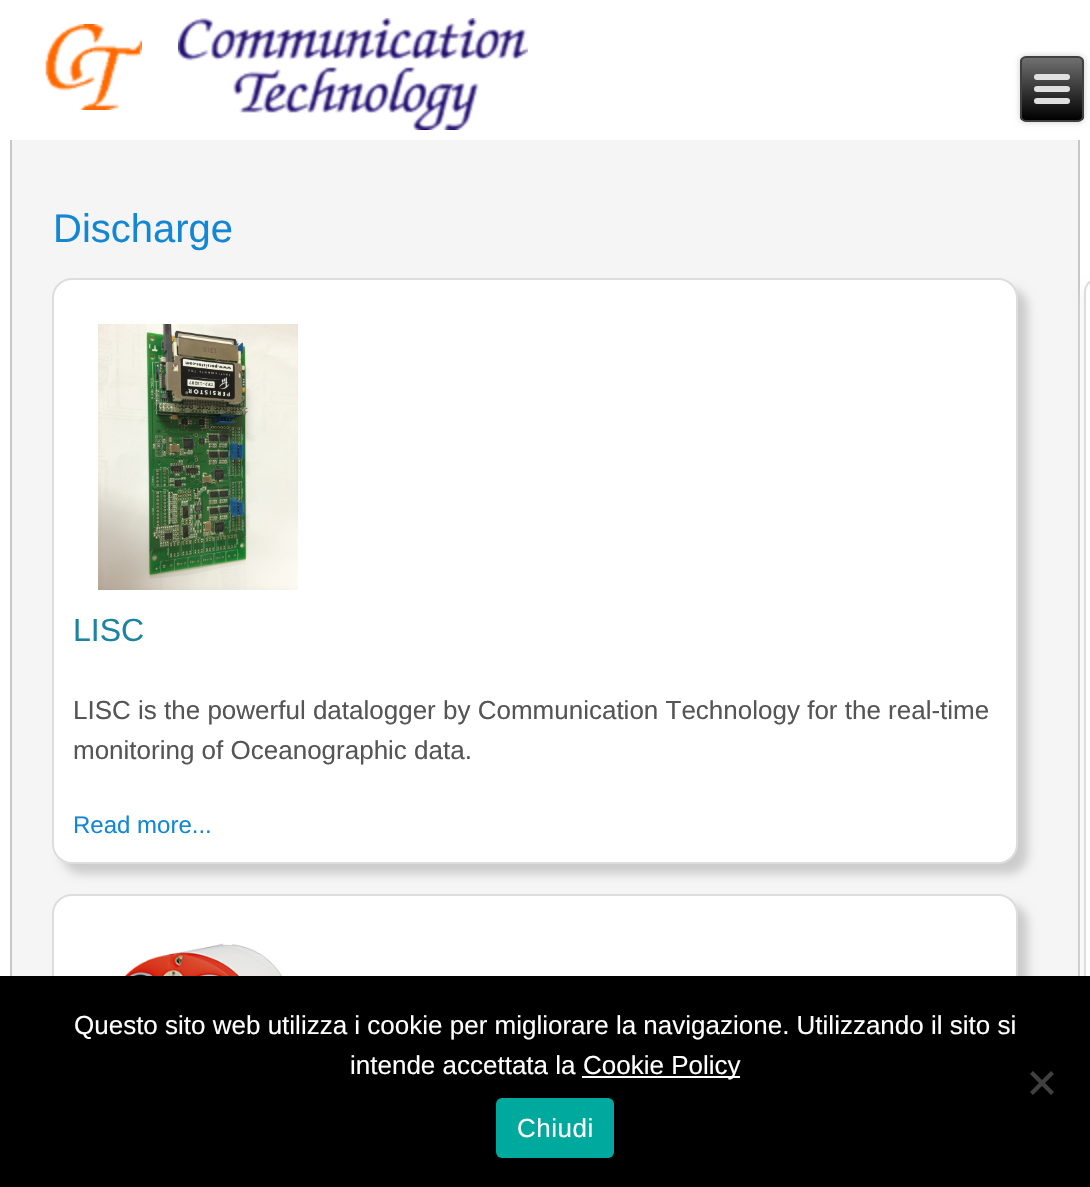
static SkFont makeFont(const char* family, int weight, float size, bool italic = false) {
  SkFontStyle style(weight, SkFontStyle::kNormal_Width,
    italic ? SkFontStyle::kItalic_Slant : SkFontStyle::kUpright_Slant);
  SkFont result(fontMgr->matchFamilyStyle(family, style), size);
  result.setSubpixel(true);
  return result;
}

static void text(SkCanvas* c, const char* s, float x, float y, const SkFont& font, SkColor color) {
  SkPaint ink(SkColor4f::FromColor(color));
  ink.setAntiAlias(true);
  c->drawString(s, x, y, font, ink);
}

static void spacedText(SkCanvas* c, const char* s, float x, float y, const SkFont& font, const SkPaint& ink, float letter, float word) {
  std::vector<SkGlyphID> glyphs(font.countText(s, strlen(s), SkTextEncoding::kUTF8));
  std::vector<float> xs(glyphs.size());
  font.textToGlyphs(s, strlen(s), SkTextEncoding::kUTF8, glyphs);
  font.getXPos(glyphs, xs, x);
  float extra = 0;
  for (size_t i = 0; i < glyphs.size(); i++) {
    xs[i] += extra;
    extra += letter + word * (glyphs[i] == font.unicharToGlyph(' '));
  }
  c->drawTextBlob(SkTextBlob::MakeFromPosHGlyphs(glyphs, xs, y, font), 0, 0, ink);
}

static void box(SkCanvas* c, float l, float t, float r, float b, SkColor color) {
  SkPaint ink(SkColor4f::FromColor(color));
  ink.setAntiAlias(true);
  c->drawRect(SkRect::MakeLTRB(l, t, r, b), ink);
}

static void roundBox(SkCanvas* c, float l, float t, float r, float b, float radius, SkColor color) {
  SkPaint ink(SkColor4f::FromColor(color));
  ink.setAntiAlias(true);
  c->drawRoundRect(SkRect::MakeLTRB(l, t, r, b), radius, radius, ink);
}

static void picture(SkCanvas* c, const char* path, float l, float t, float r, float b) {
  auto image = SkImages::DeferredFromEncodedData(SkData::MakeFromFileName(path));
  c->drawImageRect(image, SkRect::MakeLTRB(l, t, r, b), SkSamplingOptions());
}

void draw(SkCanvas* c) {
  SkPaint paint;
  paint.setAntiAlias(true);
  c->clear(0xffffffff);
  picture(c, "img_01.png", 45, 24, 142, 110);
  picture(c, "img_02.png", 178, 18, 528, 130);
  paint.setColor(0x33000000);
  paint.setMaskFilter(SkMaskFilter::MakeBlur(kNormal_SkBlurStyle, 3));
  c->drawRoundRect(SkRect::MakeLTRB(1020, 56, 1084, 122), 6, 6, paint);
  paint.setMaskFilter(nullptr);
  c->save();
  c->clipPath(SkPathBuilder().moveTo(1026, 56).lineTo(1078, 56).cubicTo(1081.5f, 56, 1084, 58.5f, 1084, 62).lineTo(1084, 116).cubicTo(1084, 119.5f, 1081.5f, 122, 1078, 122).lineTo(1026, 122).cubicTo(1022.5f, 122, 1020, 119.5f, 1020, 116).lineTo(1020, 62).cubicTo(1020, 58.5f, 1022.5f, 56, 1026, 56).close().detach(), true);
  {
    const SkColor colors[] = {0xff707070, 0xff000000};
    const float stops[] = {0, 1};
    const SkPoint ends[] = {{1052, 58}, {1052, 120}};
    paint.setShader(SkGradientShader::MakeLinear(ends, colors, stops, 2, SkTileMode::kClamp));
    paint.setAlpha(255);
  }
  c->drawRect(SkRect::MakeLTRB(1020, 58, 1084, 120), paint);
  c->restore();
  paint.setStyle(SkPaint::kStroke_Style);
  paint.setStrokeWidth(2);
  paint.setShader(nullptr);
  paint.setColor(0xff404040);
  c->drawRoundRect(SkRect::MakeLTRB(1021, 57, 1083, 121), 5, 5, paint);
  roundBox(c, 1034, 74, 1070, 80, 3, 0xffe0e0e0);
  roundBox(c, 1034, 86, 1070, 92, 3, 0xffe0e0e0);
  roundBox(c, 1034, 98, 1070, 104, 3, 0xffe0e0e0);
  box(c, 12, 140, 1078, 976, 0xfff5f5f5);
  box(c, 1078, 140, 1080, 976, 0xffc7c7c7);
  box(c, 10, 140, 12, 976, 0xffc7c7c7);
  SkFont face1 = makeFont("Liberation Sans", 400, 40);
  text(c, "Discharge", 53, 242, face1, 0xff1487d4);
  paint.setStyle(SkPaint::kFill_Style);
  paint.setColor(0xffcccccc);
  paint.setMaskFilter(SkMaskFilter::MakeBlur(kNormal_SkBlurStyle, 5));
  c->drawRoundRect(SkRect::MakeLTRB(62, 288, 1028, 874), 20, 20, paint);
  paint.setMaskFilter(nullptr);
  paint.setColor(0xffffffff);
  c->drawRoundRect(SkRect::MakeLTRB(53, 279, 1017, 863), 19, 19, paint);
  paint.setStyle(SkPaint::kStroke_Style);
  paint.setColor(0xffdddddd);
  c->drawRoundRect(SkRect::MakeLTRB(53, 279, 1017, 863), 19, 19, paint);
  picture(c, "img_03.png", 98, 324, 298, 590);
  SkFont face2 = makeFont("Liberation Sans", 400, 32);
  text(c, "LISC", 73, 641, face2, 0xff1c84a0);
  SkFont face3 = makeFont("Liberation Sans", 400, 26);
  text(c, "LISC is the powerful datalogger by Communication Technology for the real-time", 73, 719, face3, 0xff555555);
  text(c, "monitoring of Oceanographic data.", 73, 759, face3, 0xff555555);
  SkFont face4 = makeFont("Liberation Sans", 400, 24);
  text(c, "Read more...", 73, 833, face4, 0xff1487d4);
  paint.setStyle(SkPaint::kFill_Style);
  paint.setColor(0xffcccccc);
  paint.setMaskFilter(SkMaskFilter::MakeBlur(kNormal_SkBlurStyle, 5));
  c->drawRoundRect(SkRect::MakeLTRB(62, 904, 1028, 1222), 20, 20, paint);
  paint.setMaskFilter(nullptr);
  paint.setColor(0xffffffff);
  c->drawRoundRect(SkRect::MakeLTRB(53, 895, 1017, 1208), 19, 19, paint);
  paint.setStyle(SkPaint::kStroke_Style);
  paint.setColor(0xffdddddd);
  c->drawRoundRect(SkRect::MakeLTRB(53, 895, 1017, 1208), 19, 19, paint);
  picture(c, "img_04.png", 103, 943, 294, 976);
  paint.setStyle(SkPaint::kFill_Style);
  paint.setColor(0xffefefef);
  paint.setMaskFilter(SkMaskFilter::MakeBlur(kNormal_SkBlurStyle, 6));
  c->drawRoundRect(SkRect::MakeLTRB(1084, 282, 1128, 1066), 20, 20, paint);
  paint.setMaskFilter(nullptr);
  paint.setColor(0xffffffff);
  c->drawPath(SkPathBuilder().moveTo(1104, 278).lineTo(1090, 278).lineTo(1090, 1062).lineTo(1104, 1062).cubicTo(1093, 1062, 1084, 1053, 1084, 1042).lineTo(1084, 298).cubicTo(1084, 287, 1093, 278, 1104, 278).close().detach(), paint);
  paint.setStyle(SkPaint::kStroke_Style);
  paint.setColor(0xffdddddd);
  c->drawRoundRect(SkRect::MakeLTRB(1085, 279, 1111, 1061), 19, 19, paint);
  box(c, 0, 976, 1090, 1187, 0xff000000);
  text(c, "Questo sito web utilizza i cookie per migliorare la navigazione. Utilizzando il sito si", 74, 1034, face3, 0xffffffff);
  text(c, "intende accettata la", 350, 1074, face3, 0xffffffff);
  box(c, 582, 1076, 740, 1078, 0xffffffff);
  text(c, "Cookie Policy", 583, 1074, face3, 0xffffffff);
  paint.setStyle(SkPaint::kFill_Style);
  paint.setColor(0xff404040);
  c->drawPath(SkPathBuilder().moveTo(1051, 1071).lineTo(1054, 1074).lineTo(1033, 1095).lineTo(1030, 1092).close().detach(), paint);
  c->drawPath(SkPathBuilder().moveTo(1030, 1074).lineTo(1033, 1071).lineTo(1054, 1092).lineTo(1051, 1095).close().detach(), paint);
  roundBox(c, 496, 1098, 614, 1158, 6, 0xff00a99d);
  paint.setColor(0xffffffff);
  spacedText(c, "Chiudi", 517, 1137, face3, paint, 0.5f, 0);
}
